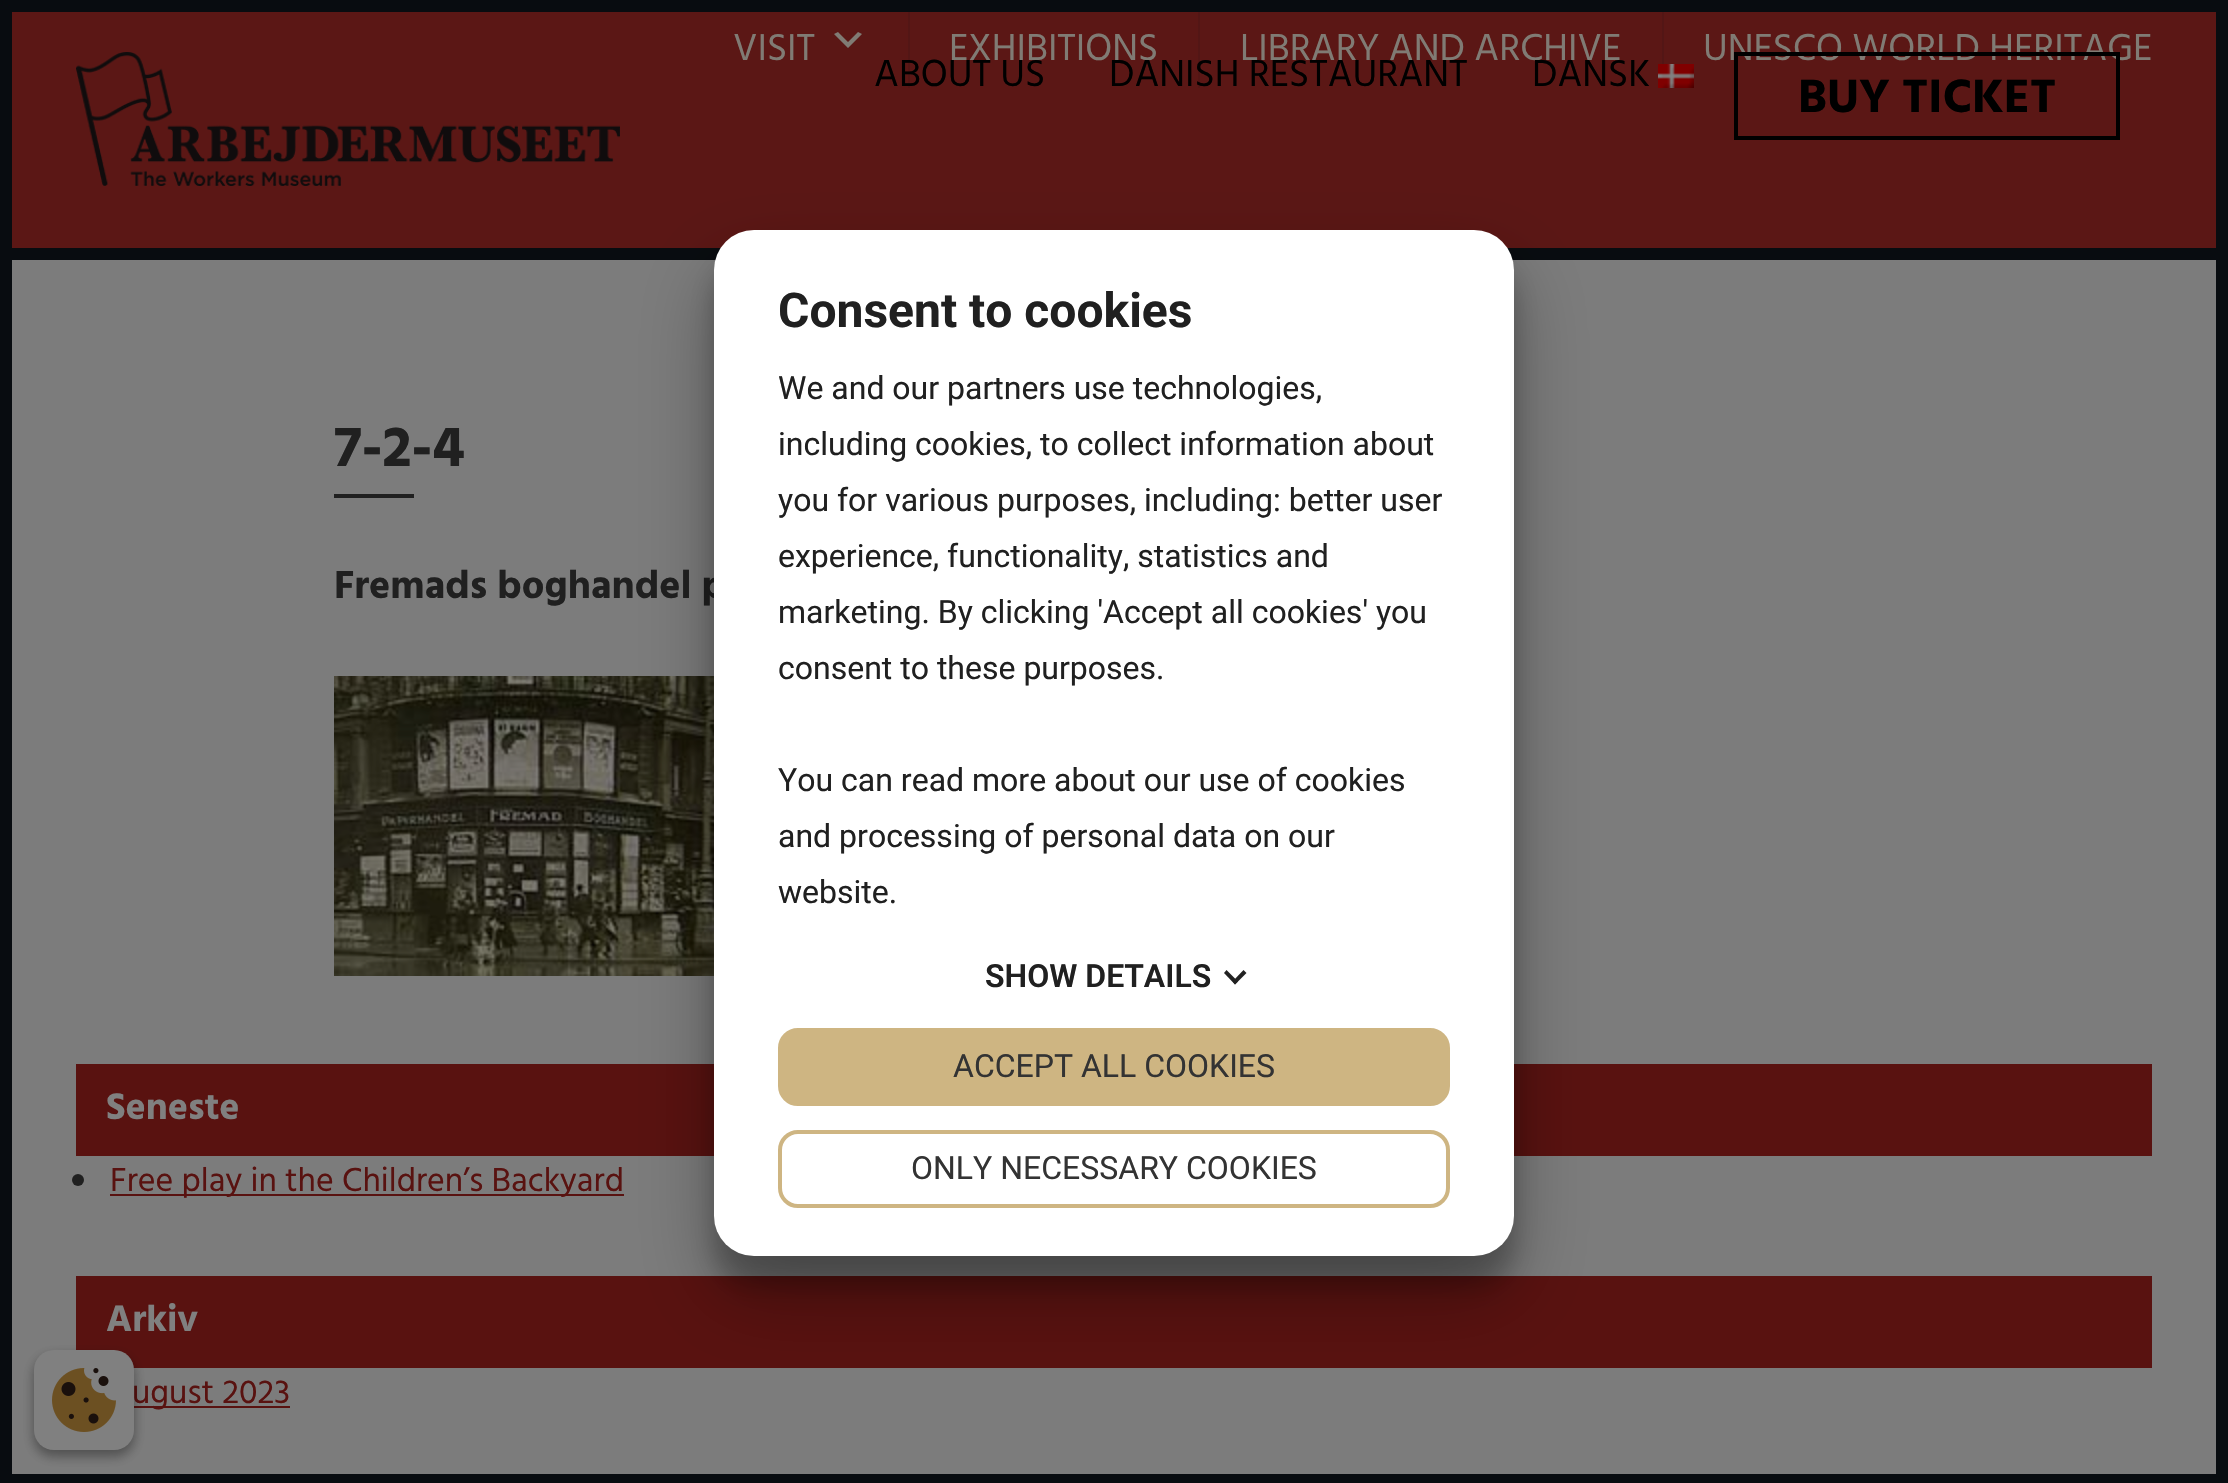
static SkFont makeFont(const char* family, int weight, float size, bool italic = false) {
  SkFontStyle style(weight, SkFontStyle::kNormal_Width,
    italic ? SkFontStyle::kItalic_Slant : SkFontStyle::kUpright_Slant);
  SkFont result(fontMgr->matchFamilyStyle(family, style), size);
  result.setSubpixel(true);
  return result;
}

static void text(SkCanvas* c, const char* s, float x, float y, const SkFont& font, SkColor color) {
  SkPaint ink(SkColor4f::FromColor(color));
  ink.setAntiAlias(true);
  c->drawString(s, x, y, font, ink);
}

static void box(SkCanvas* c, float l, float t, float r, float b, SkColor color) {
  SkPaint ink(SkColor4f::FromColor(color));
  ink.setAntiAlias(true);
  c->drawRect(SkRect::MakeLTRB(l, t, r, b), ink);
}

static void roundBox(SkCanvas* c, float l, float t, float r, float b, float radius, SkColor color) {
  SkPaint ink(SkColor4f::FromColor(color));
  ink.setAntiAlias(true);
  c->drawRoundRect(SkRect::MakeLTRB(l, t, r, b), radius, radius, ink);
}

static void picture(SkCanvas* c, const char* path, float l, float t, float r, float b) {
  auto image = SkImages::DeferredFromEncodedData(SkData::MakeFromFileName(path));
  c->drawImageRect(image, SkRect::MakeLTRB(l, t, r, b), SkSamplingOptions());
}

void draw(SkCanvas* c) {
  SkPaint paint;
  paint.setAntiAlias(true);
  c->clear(0xff7c7c7c);
  paint.setStyle(SkPaint::kStroke_Style);
  paint.setStrokeWidth(12);
  paint.setColor(0xff080c10);
  c->drawRect(SkRect::MakeLTRB(6, 6, 2222, 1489), paint);
  box(c, 12, 12, 2216, 248, 0xff5b1715);
  box(c, 12, 248, 2216, 260, 0xff080c10);
  picture(c, "img_01.png", 76, 52, 620, 186);
  SkFont face1 = makeFont("Hind", 400, 38.4f);
  text(c, "VISIT", 733, 60, face1, 0xff807b74);
  paint.setStyle(SkPaint::kFill_Style);
  paint.setColor(0xff807b74);
  c->drawPath(SkPathBuilder().moveTo(838, 32).lineTo(848, 42).lineTo(858, 32).lineTo(862, 34).lineTo(848, 48).lineTo(834, 34).close().detach(), paint);
  box(c, 908, 12, 910, 88, 0xff531615);
  text(c, "EXHIBITIONS", 949, 60, face1, 0xff807b74);
  box(c, 1198, 12, 1200, 88, 0xff531615);
  text(c, "LIBRARY AND ARCHIVE", 1240, 60, face1, 0xff807b74);
  box(c, 1662, 12, 1664, 64, 0xff531615);
  text(c, "UNESCO WORLD HERITAGE", 1703, 60, face1, 0xff807b74);
  text(c, "ABOUT US", 874, 86, face1, 0xff000000);
  text(c, "DANISH RESTAURANT", 1109, 86, face1, 0xff000000);
  text(c, "DANSK", 1532, 86, face1, 0xff000000);
  picture(c, "img_02.png", 1658, 64, 1694, 88);
  paint.setStyle(SkPaint::kStroke_Style);
  paint.setStrokeWidth(4);
  paint.setColor(0xff000000);
  c->drawRect(SkRect::MakeLTRB(1736, 54, 2118, 138), paint);
  SkFont face2 = makeFont("Hind", 700, 48);
  text(c, "BUY TICKET", 1798, 112, face2, 0xff000000);
  SkFont face3 = makeFont("Hind", 700, 58);
  text(c, "7-2-4", 334, 466, face3, 0xff202020);
  box(c, 334, 494, 414, 498, 0xff202020);
  SkFont face4 = makeFont("Hind", 700, 40);
  text(c, "Fremads boghandel p", 334, 598, face4, 0xff202020);
  picture(c, "img_03.png", 334, 676, 714, 976);
  box(c, 76, 1064, 2152, 1156, 0xff591210);
  SkFont face5 = makeFont("Hind", 700, 38);
  text(c, "Seneste", 106, 1119, face5, 0xff808080);
  paint.setStyle(SkPaint::kFill_Style);
  paint.setColor(0xff202020);
  c->drawCircle(78, 1180, 6, paint);
  box(c, 110, 1194, 624, 1196, 0xff591210);
  SkFont face6 = makeFont("Hind", 400, 34);
  text(c, "Free play in the Children’s Backyard", 110, 1191, face6, 0xff591210);
  box(c, 76, 1276, 2152, 1368, 0xff591210);
  text(c, "Arkiv", 106, 1331, face5, 0xff808080);
  box(c, 134, 1406, 290, 1408, 0xff591210);
  text(c, "ugust 2023", 132, 1403, face6, 0xff591210);
  box(c, 12, 1474, 2216, 1483, 0xff080c10);
  paint.setColor(0x38000000);
  paint.setMaskFilter(SkMaskFilter::MakeBlur(kNormal_SkBlurStyle, 12));
  c->drawRoundRect(SkRect::MakeLTRB(714, 260, 1514, 1286), 40, 40, paint);
  paint.setMaskFilter(nullptr);
  paint.setColor(0x4d000000);
  paint.setMaskFilter(SkMaskFilter::MakeBlur(kNormal_SkBlurStyle, 38));
  c->drawRoundRect(SkRect::MakeLTRB(714, 268, 1514, 1294), 40, 40, paint);
  paint.setMaskFilter(nullptr);
  roundBox(c, 714, 230, 1514, 1256, 40, 0xffffffff);
  SkFont face7 = makeFont("Roboto", 700, 48);
  text(c, "Consent to cookies", 778, 327, face7, 0xff202020);
  SkFont face8 = makeFont("Roboto", 400, 32);
  text(c, "We and our partners use technologies,", 778, 399, face8, 0xff202020);
  text(c, "including cookies, to collect information about", 778, 455, face8, 0xff202020);
  text(c, "you for various purposes, including: better user", 778, 511, face8, 0xff202020);
  text(c, "experience, functionality, statistics and", 778, 567, face8, 0xff202020);
  text(c, "marketing. By clicking 'Accept all cookies' you", 778, 623, face8, 0xff202020);
  text(c, "consent to these purposes.", 778, 679, face8, 0xff202020);
  text(c, "You can read more about our use of cookies", 778, 791, face8, 0xff202020);
  text(c, "and processing of personal data on our", 778, 847, face8, 0xff202020);
  text(c, "website.", 778, 903, face8, 0xff202020);
  SkFont face9 = makeFont("Roboto", 600, 32);
  text(c, "SHOW DETAILS", 985, 987, face9, 0xff202020);
  paint.setColor(0xff212121);
  c->drawPath(SkPathBuilder().moveTo(1243.5f, 970).lineTo(1246.5f, 973).lineTo(1235, 984.5f).lineTo(1232.5f, 981.5f).close().detach(), paint);
  c->drawPath(SkPathBuilder().moveTo(1226.5f, 970).lineTo(1238, 981.5f).lineTo(1235, 984.5f).lineTo(1224, 973).close().detach(), paint);
  paint.setColor(0xffceb582);
  c->drawRoundRect(SkRect::MakeLTRB(780, 1030, 1448, 1104), 18, 18, paint);
  paint.setStyle(SkPaint::kStroke_Style);
  c->drawRoundRect(SkRect::MakeLTRB(780, 1030, 1448, 1104), 18, 18, paint);
  text(c, "ACCEPT ALL COOKIES", 953, 1077, face8, 0xff333333);
  c->drawRoundRect(SkRect::MakeLTRB(780, 1132, 1448, 1206), 18, 18, paint);
  text(c, "ONLY NECESSARY COOKIES", 911, 1179, face8, 0xff333333);
  paint.setStyle(SkPaint::kFill_Style);
  paint.setColor(0x3b000000);
  paint.setMaskFilter(SkMaskFilter::MakeBlur(kNormal_SkBlurStyle, 6));
  c->drawRoundRect(SkRect::MakeLTRB(34, 1356, 134, 1456), 20, 20, paint);
  paint.setMaskFilter(nullptr);
  paint.setColor(0x29000000);
  paint.setMaskFilter(SkMaskFilter::MakeBlur(kNormal_SkBlurStyle, 6));
  c->drawRoundRect(SkRect::MakeLTRB(34, 1356, 134, 1456), 20, 20, paint);
  paint.setMaskFilter(nullptr);
  roundBox(c, 34, 1350, 134, 1450, 20, 0xff808080);
  picture(c, "img_04.png", 52, 1368, 116, 1432);
}
